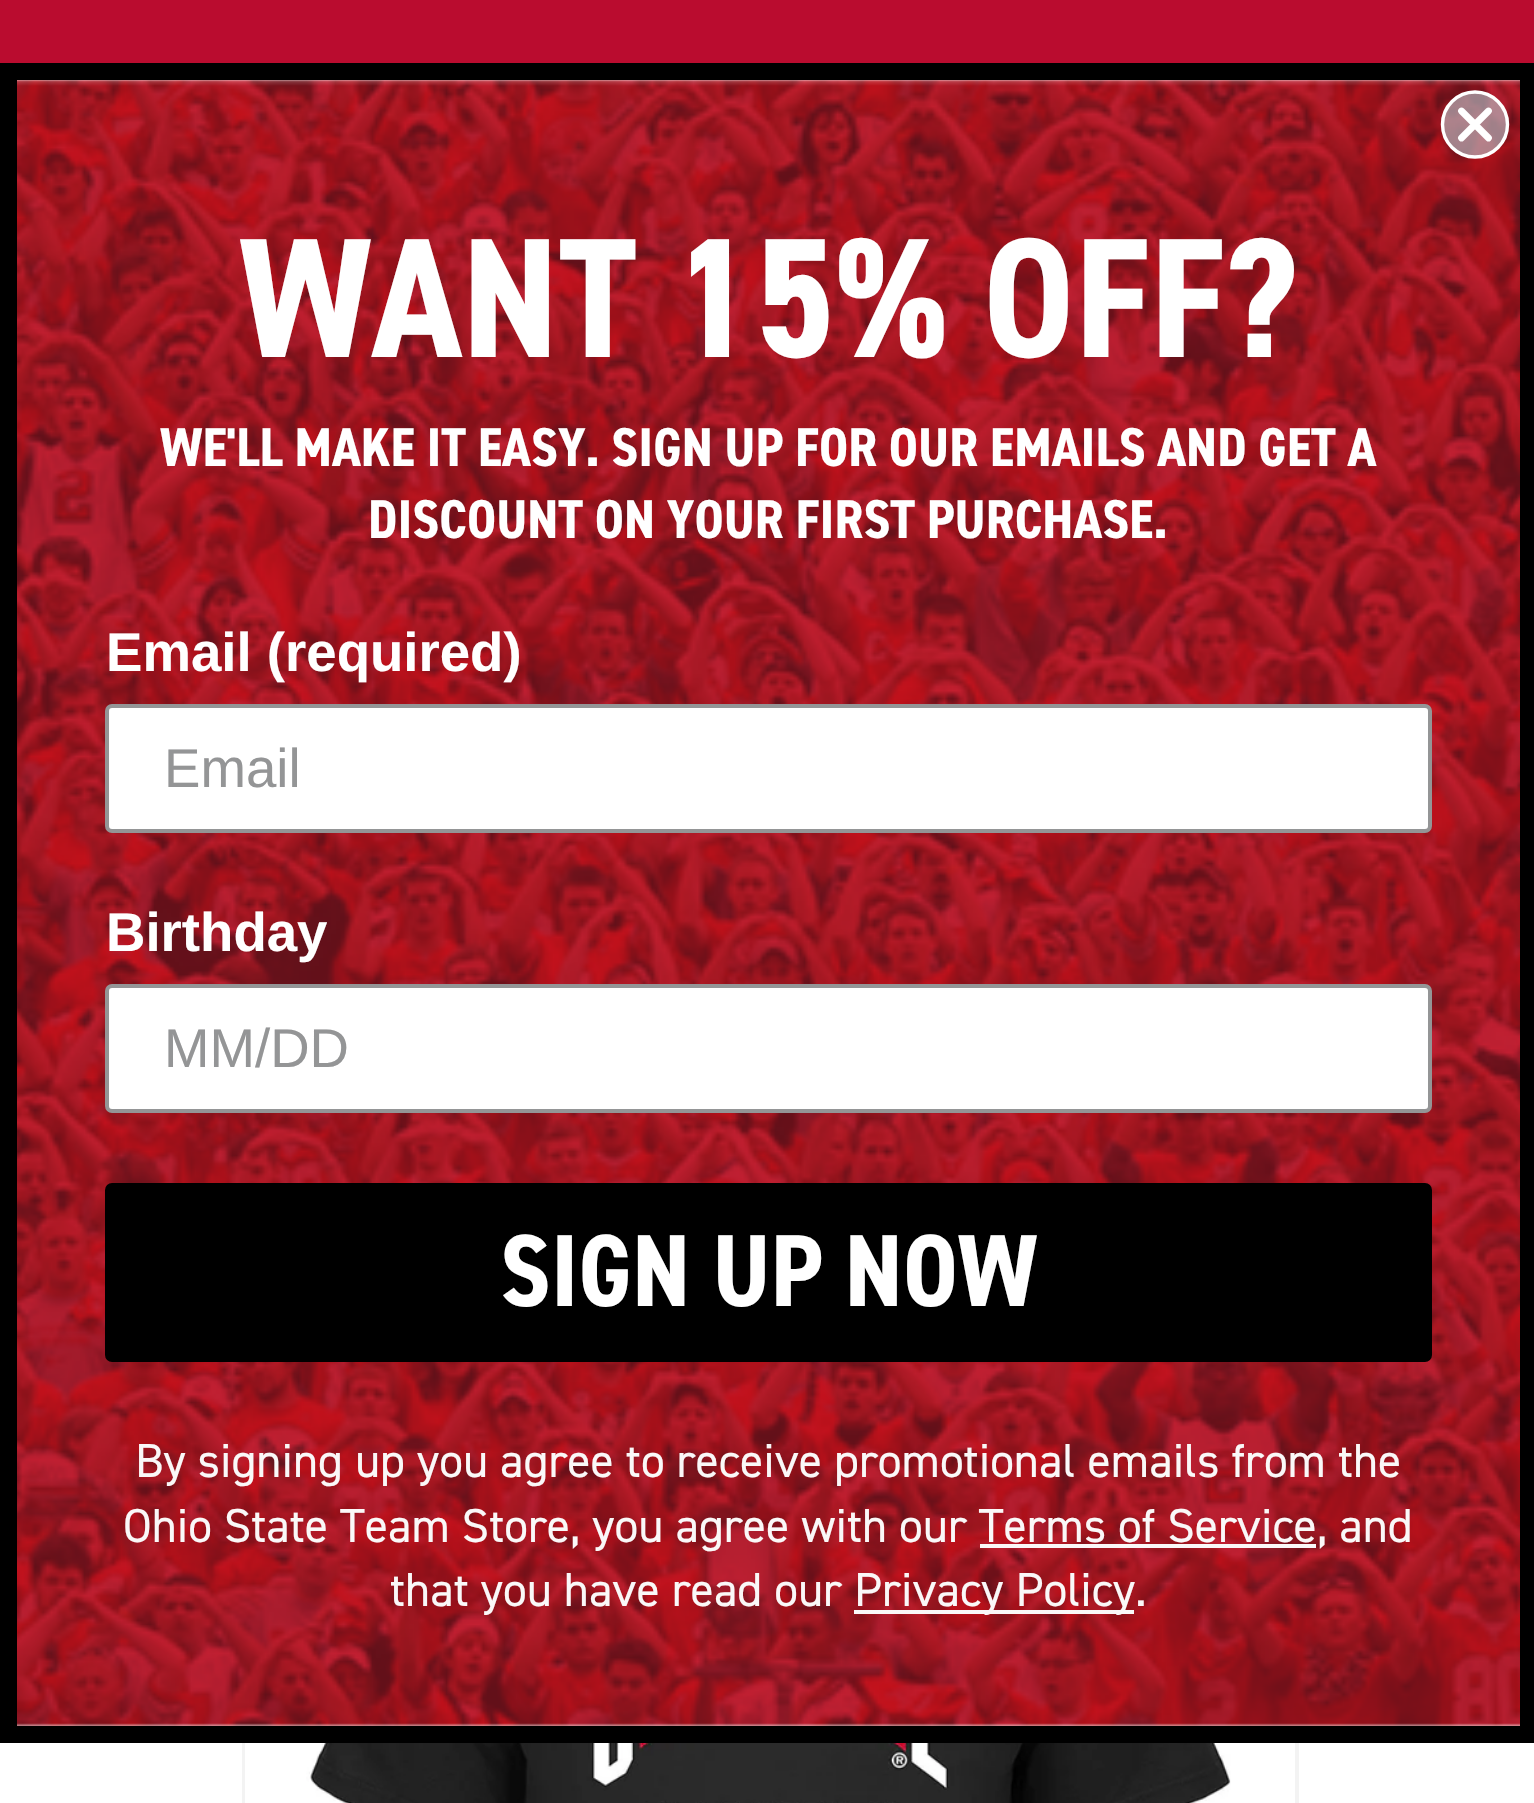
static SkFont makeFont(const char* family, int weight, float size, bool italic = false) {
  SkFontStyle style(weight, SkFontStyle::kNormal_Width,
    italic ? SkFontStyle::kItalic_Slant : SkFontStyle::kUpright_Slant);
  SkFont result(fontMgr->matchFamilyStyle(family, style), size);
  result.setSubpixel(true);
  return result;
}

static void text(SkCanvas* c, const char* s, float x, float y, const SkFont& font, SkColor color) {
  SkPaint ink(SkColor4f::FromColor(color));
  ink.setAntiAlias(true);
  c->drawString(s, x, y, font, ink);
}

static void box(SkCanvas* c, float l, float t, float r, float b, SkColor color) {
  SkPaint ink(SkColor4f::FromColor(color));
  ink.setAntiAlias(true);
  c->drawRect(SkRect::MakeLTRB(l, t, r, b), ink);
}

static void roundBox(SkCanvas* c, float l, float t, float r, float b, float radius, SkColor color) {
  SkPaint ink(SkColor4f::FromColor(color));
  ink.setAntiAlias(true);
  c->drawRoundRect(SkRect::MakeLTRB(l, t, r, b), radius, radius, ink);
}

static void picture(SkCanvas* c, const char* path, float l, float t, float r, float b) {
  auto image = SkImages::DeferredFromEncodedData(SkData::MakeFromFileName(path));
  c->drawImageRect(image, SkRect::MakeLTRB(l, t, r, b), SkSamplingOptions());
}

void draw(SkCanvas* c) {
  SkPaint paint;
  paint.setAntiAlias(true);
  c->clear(0xffffffff);
  box(c, 0, 0, 1534, 63, 0xffba0c2f);
  paint.setStyle(SkPaint::kStroke_Style);
  paint.setStrokeWidth(4);
  paint.setColor(0xfff3f3f3);
  c->drawRect(SkRect::MakeLTRB(244, 1381, 1297, 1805), paint);
  box(c, 242, 1379, 1299, 1726, 0xffffffff);
  picture(c, "img_01.png", 17, 80, 1520, 1726);
  paint.setStrokeWidth(17);
  paint.setColor(0xff000000);
  c->drawRect(SkRect::MakeLTRB(8.5f, 71.5f, 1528.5f, 1734.5f), paint);
  paint.setStyle(SkPaint::kFill_Style);
  paint.setColor(0xa6b4bbc3);
  c->drawCircle(1475, 124.5f, 32.5f, paint);
  paint.setStyle(SkPaint::kStroke_Style);
  paint.setStrokeWidth(3.4f);
  paint.setColor(0xffffffff);
  c->drawCircle(1475, 124.5f, 32.5f, paint);
  paint.setStrokeWidth(6.8f);
  paint.setStrokeCap(SkPaint::kRound_Cap);
  paint.setStrokeJoin(SkPaint::kRound_Join);
  c->drawPath(SkPathBuilder().moveTo(1461.5f, 111).lineTo(1488.5f, 138).moveTo(1461.5f, 138).lineTo(1488.5f, 111).close().detach(), paint);
  SkFont face1 = makeFont("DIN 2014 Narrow", 700, 170.75f);
  text(c, "WANT 15% OFF?", 239, 357, face1, 0xffffffff);
  SkFont face2 = makeFont("DIN 2014 Narrow", 700, 54.6f);
  text(c, "WE'LL MAKE IT EASY. SIGN UP FOR OUR EMAILS AND GET A", 160, 466, face2, 0xffffffff);
  text(c, "DISCOUNT ON YOUR FIRST PURCHASE.", 368, 538, face2, 0xffffffff);
  SkFont face3 = makeFont("Liberation Sans", 700, 54.6f);
  text(c, "Email (required)", 106, 671, face3, 0xffffffff);
  paint.setStyle(SkPaint::kFill_Style);
  c->drawRoundRect(SkRect::MakeLTRB(107, 706, 1430, 831), 5, 5, paint);
  paint.setStyle(SkPaint::kStroke_Style);
  paint.setStrokeWidth(4);
  paint.setStrokeCap(SkPaint::kButt_Cap);
  paint.setStrokeJoin(SkPaint::kMiter_Join);
  paint.setColor(0xff949596);
  c->drawRoundRect(SkRect::MakeLTRB(107, 706, 1430, 831), 5, 5, paint);
  SkFont face4 = makeFont("Liberation Sans", 400, 54.6f);
  text(c, "Email", 164, 787, face4, 0xff949596);
  text(c, "Birthday", 106, 951, face3, 0xffffffff);
  paint.setStyle(SkPaint::kFill_Style);
  paint.setColor(0xffffffff);
  c->drawRoundRect(SkRect::MakeLTRB(107, 986, 1430, 1111), 5, 5, paint);
  paint.setStyle(SkPaint::kStroke_Style);
  paint.setColor(0xff949596);
  c->drawRoundRect(SkRect::MakeLTRB(107, 986, 1430, 1111), 5, 5, paint);
  text(c, "MM/DD", 164, 1067, face4, 0xff949596);
  roundBox(c, 105, 1183, 1432, 1362, 7, 0xff000000);
  SkFont face5 = makeFont("DIN 2014 Narrow", 700, 102.5f);
  text(c, "SIGN UP NOW", 500, 1306, face5, 0xffffffff);
  SkFont face6 = makeFont("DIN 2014", 400, 47.8f);
  text(c, "By signing up you agree to receive promotional emails from the", 135, 1477, face6, 0xfffaf8f8);
  text(c, "Ohio State Team Store, you agree with our Terms of Service, and", 123, 1542, face6, 0xfffaf8f8);
  box(c, 980, 1544, 1316, 1548, 0xfffaf8f8);
  text(c, "that you have read our", 390, 1606, face6, 0xfffaf8f8);
  box(c, 854, 1610, 1134, 1614, 0xfffaf8f8);
  text(c, "Privacy Policy.", 854, 1606, face6, 0xfffaf8f8);
  picture(c, "img_02.png", 245, 1743, 1231, 1803);
}
